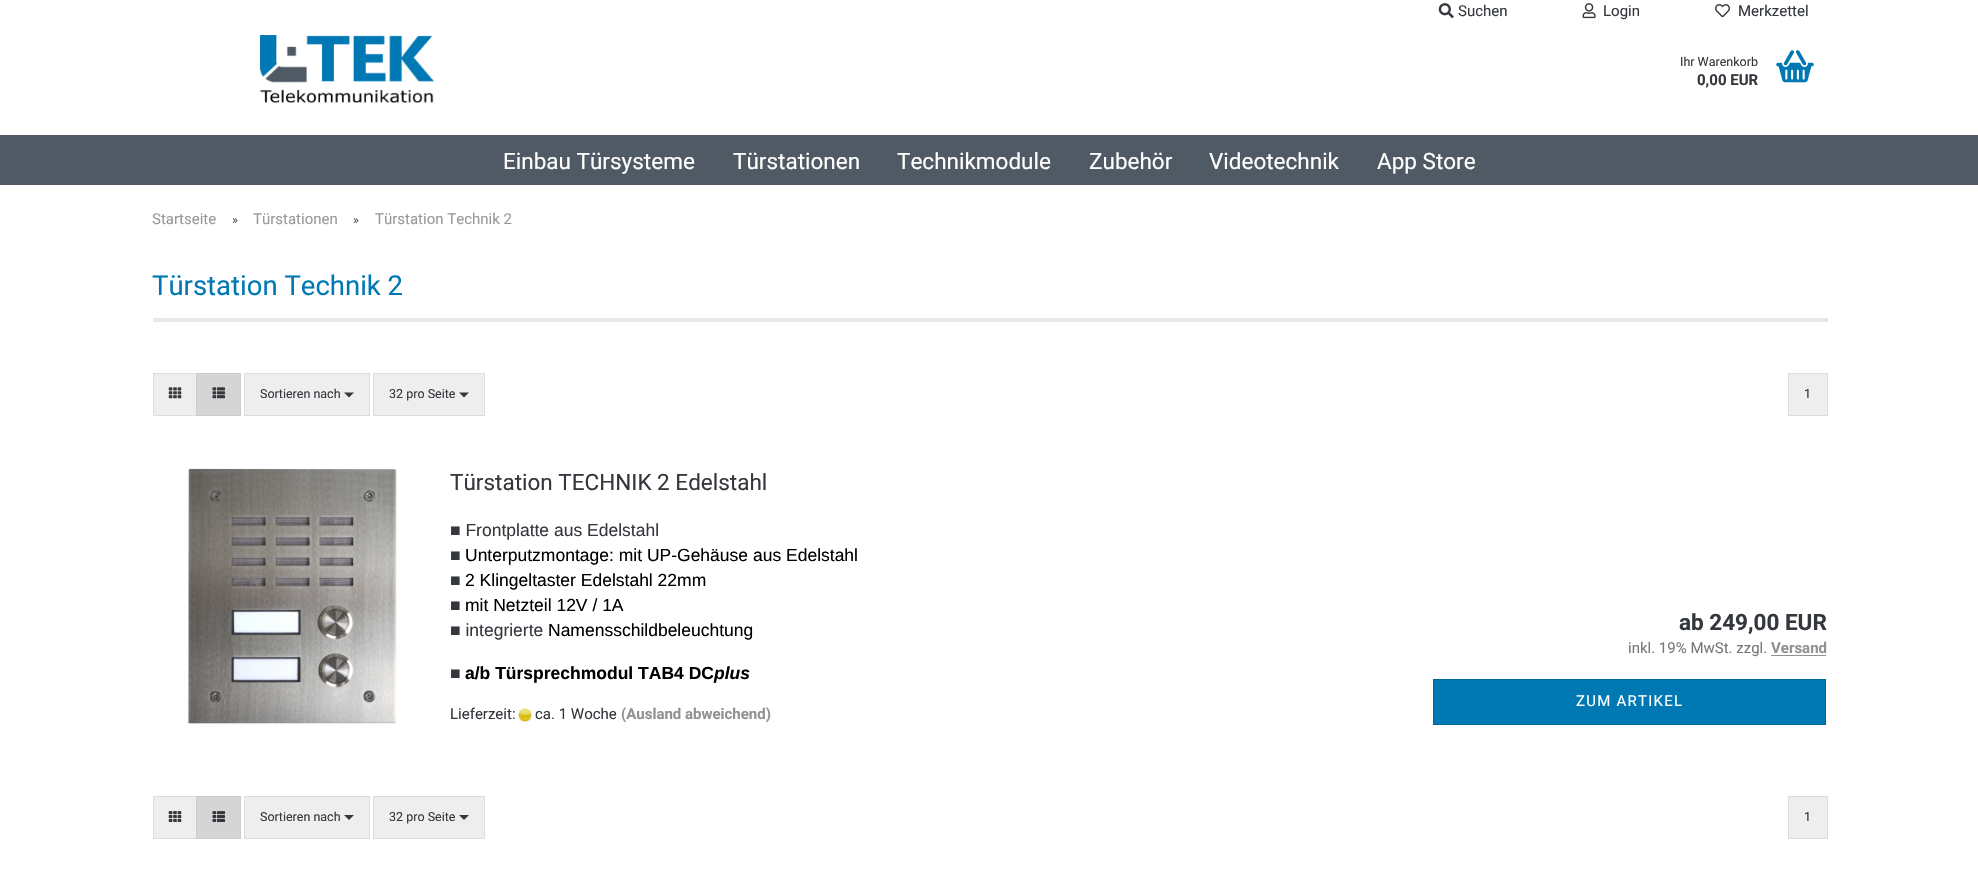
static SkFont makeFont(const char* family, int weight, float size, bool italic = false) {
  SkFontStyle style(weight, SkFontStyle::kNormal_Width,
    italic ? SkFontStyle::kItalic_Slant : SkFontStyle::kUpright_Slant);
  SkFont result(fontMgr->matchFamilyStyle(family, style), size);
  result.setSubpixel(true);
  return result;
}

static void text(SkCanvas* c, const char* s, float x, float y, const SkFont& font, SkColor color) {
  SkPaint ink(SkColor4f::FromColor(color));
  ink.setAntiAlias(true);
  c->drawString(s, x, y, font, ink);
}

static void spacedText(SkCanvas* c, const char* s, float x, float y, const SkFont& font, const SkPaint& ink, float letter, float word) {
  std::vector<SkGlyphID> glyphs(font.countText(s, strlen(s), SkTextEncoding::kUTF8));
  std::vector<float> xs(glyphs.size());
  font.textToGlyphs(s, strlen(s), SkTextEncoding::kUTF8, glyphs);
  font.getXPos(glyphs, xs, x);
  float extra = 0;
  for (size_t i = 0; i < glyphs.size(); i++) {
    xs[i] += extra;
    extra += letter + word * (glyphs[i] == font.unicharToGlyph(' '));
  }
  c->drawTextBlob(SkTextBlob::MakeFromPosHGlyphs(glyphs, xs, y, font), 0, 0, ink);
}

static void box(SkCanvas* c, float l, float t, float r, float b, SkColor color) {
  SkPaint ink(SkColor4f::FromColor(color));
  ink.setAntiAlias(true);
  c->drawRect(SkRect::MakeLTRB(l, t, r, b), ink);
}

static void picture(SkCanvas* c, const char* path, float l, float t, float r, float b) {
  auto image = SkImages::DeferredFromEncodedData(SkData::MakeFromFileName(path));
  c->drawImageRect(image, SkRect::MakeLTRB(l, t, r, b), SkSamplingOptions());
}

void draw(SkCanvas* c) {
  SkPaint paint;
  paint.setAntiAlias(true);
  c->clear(0xffffffff);
  picture(c, "img_01.png", 1438, 3, 1454, 19);
  SkFont face1 = makeFont("Roboto", 400, 15);
  text(c, "Suchen", 1458, 16, face1, 0xff34383d);
  picture(c, "img_02.png", 1582, 3, 1596, 19);
  text(c, "Login", 1603, 16, face1, 0xff34383d);
  picture(c, "img_03.png", 1715, 4, 1730, 18);
  text(c, "Merkzettel", 1738, 16, face1, 0xff34383d);
  picture(c, "img_04.png", 260, 35, 434, 103);
  SkFont face2 = makeFont("Roboto", 400, 12.5f);
  text(c, "Ihr Warenkorb", 1680, 66, face2, 0xff34383d);
  SkFont face3 = makeFont("Roboto", 700, 15);
  text(c, "0,00 EUR", 1697, 85, face3, 0xff34383d);
  picture(c, "img_05.png", 1776, 50, 1814, 83);
  box(c, 0, 135, 1978, 185, 0xff505a64);
  SkFont face4 = makeFont("Roboto", 400, 22.5f);
  text(c, "Einbau Türsysteme", 503, 169, face4, 0xffffffff);
  text(c, "Türstationen", 733, 169, face4, 0xffffffff);
  text(c, "Technikmodule", 897, 169, face4, 0xffffffff);
  text(c, "Zubehör", 1089, 169, face4, 0xffffffff);
  text(c, "Videotechnik", 1209, 169, face4, 0xffffffff);
  text(c, "App Store", 1377, 169, face4, 0xffffffff);
  text(c, "Startseite", 152, 224, face1, 0xff999999);
  text(c, "»", 232, 224, face2, 0xff505a64);
  text(c, "Türstationen", 253, 224, face1, 0xff999999);
  text(c, "»", 353, 224, face2, 0xff505a64);
  text(c, "Türstation Technik 2", 375, 224, face1, 0xff999999);
  box(c, 153, 318, 1828, 322, 0xffe7e7e7);
  SkFont face5 = makeFont("Roboto", 400, 27.5f);
  text(c, "Türstation Technik 2", 152, 295, face5, 0xff0078b4);
  box(c, 154, 374, 196, 415, 0xffeeeeee);
  paint.setStyle(SkPaint::kStroke_Style);
  paint.setStrokeWidth(1);
  paint.setColor(0xffdddddd);
  c->drawRect(SkRect::MakeLTRB(153.5f, 373.5f, 197.5f, 415.5f), paint);
  picture(c, "img_06.png", 168, 387, 182, 399);
  paint.setStyle(SkPaint::kFill_Style);
  paint.setColor(0xffd5d5d5);
  c->drawRect(SkRect::MakeLTRB(196.5f, 373.5f, 240.5f, 415.5f), paint);
  paint.setStyle(SkPaint::kStroke_Style);
  paint.setColor(0xffcccccc);
  c->drawRect(SkRect::MakeLTRB(196.5f, 373.5f, 240.5f, 415.5f), paint);
  picture(c, "img_07.png", 212, 387, 225, 399);
  paint.setStyle(SkPaint::kFill_Style);
  paint.setColor(0xffeeeeee);
  c->drawRect(SkRect::MakeLTRB(244.5f, 373.5f, 369.5f, 415.5f), paint);
  paint.setStyle(SkPaint::kStroke_Style);
  paint.setColor(0xffdddddd);
  c->drawRect(SkRect::MakeLTRB(244.5f, 373.5f, 369.5f, 415.5f), paint);
  text(c, "Sortieren nach", 260, 398, face2, 0xff34383d);
  paint.setStyle(SkPaint::kFill_Style);
  paint.setColor(0xff34383d);
  c->drawPath(SkPathBuilder().moveTo(344, 392.5f).lineTo(354, 392.5f).lineTo(349, 397.5f).close().detach(), paint);
  paint.setColor(0xffeeeeee);
  c->drawRect(SkRect::MakeLTRB(373.5f, 373.5f, 484.5f, 415.5f), paint);
  paint.setStyle(SkPaint::kStroke_Style);
  paint.setColor(0xffdddddd);
  c->drawRect(SkRect::MakeLTRB(373.5f, 373.5f, 484.5f, 415.5f), paint);
  text(c, "32 pro Seite", 389, 398, face2, 0xff34383d);
  paint.setStyle(SkPaint::kFill_Style);
  paint.setColor(0xff34383d);
  c->drawPath(SkPathBuilder().moveTo(459, 392.5f).lineTo(469, 392.5f).lineTo(464, 397.5f).close().detach(), paint);
  paint.setColor(0xffeeeeee);
  c->drawRect(SkRect::MakeLTRB(1788.5f, 373.5f, 1827.5f, 415.5f), paint);
  paint.setStyle(SkPaint::kStroke_Style);
  paint.setColor(0xffdddddd);
  c->drawRect(SkRect::MakeLTRB(1788.5f, 373.5f, 1827.5f, 415.5f), paint);
  text(c, "1", 1804, 398, face2, 0xff34383d);
  picture(c, "img_08.png", 188, 468, 397, 724);
  text(c, "Türstation TECHNIK 2 Edelstahl", 450, 490, face4, 0xff34383d);
  SkFont face6 = makeFont("Liberation Sans", 400, 17.5f);
  text(c, "■ Frontplatte aus Edelstahl", 450, 536, face6, 0xff34383d);
  text(c, "■", 450, 561, face6, 0xff34383d);
  text(c, "Unterputzmontage: mit UP-Gehäuse aus Edelstahl", 465, 561, face6, 0xff000000);
  text(c, "■", 450, 586, face6, 0xff34383d);
  text(c, "2 Klingeltaster Edelstahl 22mm", 465, 586, face6, 0xff000000);
  text(c, "■", 450, 611, face6, 0xff34383d);
  text(c, "mit Netzteil 12V / 1A", 465, 611, face6, 0xff000000);
  text(c, "■ integrierte", 450, 636, face6, 0xff34383d);
  text(c, "Namensschildbeleuchtung", 548, 636, face6, 0xff000000);
  text(c, "■", 450, 679, face6, 0xff34383d);
  SkFont face7 = makeFont("Liberation Sans", 700, 17.5f);
  text(c, "a/b Türsprechmodul TAB4 DC", 465, 679, face7, 0xff000000);
  SkFont face8 = makeFont("Liberation Sans", 700, 17.5f, true);
  text(c, "plus", 714, 679, face8, 0xff000000);
  text(c, "Lieferzeit:", 450, 719, face1, 0xff34383d);
  picture(c, "img_09.png", 518, 708, 532, 722);
  text(c, "ca. 1 Woche", 535, 719, face1, 0xff34383d);
  text(c, "(Ausland abweichend)", 621, 719, face3, 0xff919191);
  SkFont face9 = makeFont("Roboto", 700, 22.5f);
  text(c, "ab 249,00 EUR", 1679, 630, face9, 0xff34383d);
  text(c, "inkl. 19% MwSt. zzgl.", 1628, 653, face1, 0xff777777);
  text(c, "Versand", 1771, 653, face3, 0xff919191);
  box(c, 1771, 655, 1826, 656, 0xff919191);
  paint.setStyle(SkPaint::kFill_Style);
  paint.setColor(0xff0078b4);
  c->drawRect(SkRect::MakeLTRB(1433.5f, 679.5f, 1825.5f, 724.5f), paint);
  paint.setStyle(SkPaint::kStroke_Style);
  paint.setColor(0xff00679b);
  c->drawRect(SkRect::MakeLTRB(1433.5f, 679.5f, 1825.5f, 724.5f), paint);
  paint.setStyle(SkPaint::kFill_Style);
  paint.setColor(0xffffffff);
  spacedText(c, "ZUM ARTIKEL", 1576, 706, face1, paint, 1.25f, 0);
  box(c, 154, 797, 196, 838, 0xffeeeeee);
  paint.setStyle(SkPaint::kStroke_Style);
  paint.setColor(0xffdddddd);
  c->drawRect(SkRect::MakeLTRB(153.5f, 796.5f, 197.5f, 838.5f), paint);
  picture(c, "img_10.png", 168, 811, 182, 822);
  paint.setStyle(SkPaint::kFill_Style);
  paint.setColor(0xffd5d5d5);
  c->drawRect(SkRect::MakeLTRB(196.5f, 796.5f, 240.5f, 838.5f), paint);
  paint.setStyle(SkPaint::kStroke_Style);
  paint.setColor(0xffcccccc);
  c->drawRect(SkRect::MakeLTRB(196.5f, 796.5f, 240.5f, 838.5f), paint);
  picture(c, "img_11.png", 212, 811, 225, 822);
  paint.setStyle(SkPaint::kFill_Style);
  paint.setColor(0xffeeeeee);
  c->drawRect(SkRect::MakeLTRB(244.5f, 796.5f, 369.5f, 838.5f), paint);
  paint.setStyle(SkPaint::kStroke_Style);
  paint.setColor(0xffdddddd);
  c->drawRect(SkRect::MakeLTRB(244.5f, 796.5f, 369.5f, 838.5f), paint);
  text(c, "Sortieren nach", 260, 821, face2, 0xff34383d);
  paint.setStyle(SkPaint::kFill_Style);
  paint.setColor(0xff34383d);
  c->drawPath(SkPathBuilder().moveTo(344, 815).lineTo(354, 815).lineTo(349, 820).close().detach(), paint);
  paint.setColor(0xffeeeeee);
  c->drawRect(SkRect::MakeLTRB(373.5f, 796.5f, 484.5f, 838.5f), paint);
  paint.setStyle(SkPaint::kStroke_Style);
  paint.setColor(0xffdddddd);
  c->drawRect(SkRect::MakeLTRB(373.5f, 796.5f, 484.5f, 838.5f), paint);
  text(c, "32 pro Seite", 389, 821, face2, 0xff34383d);
  paint.setStyle(SkPaint::kFill_Style);
  paint.setColor(0xff34383d);
  c->drawPath(SkPathBuilder().moveTo(459, 815).lineTo(469, 815).lineTo(464, 820).close().detach(), paint);
  paint.setColor(0xffeeeeee);
  c->drawRect(SkRect::MakeLTRB(1788.5f, 796.5f, 1827.5f, 838.5f), paint);
  paint.setStyle(SkPaint::kStroke_Style);
  paint.setColor(0xffdddddd);
  c->drawRect(SkRect::MakeLTRB(1788.5f, 796.5f, 1827.5f, 838.5f), paint);
  text(c, "1", 1804, 821, face2, 0xff34383d);
}
